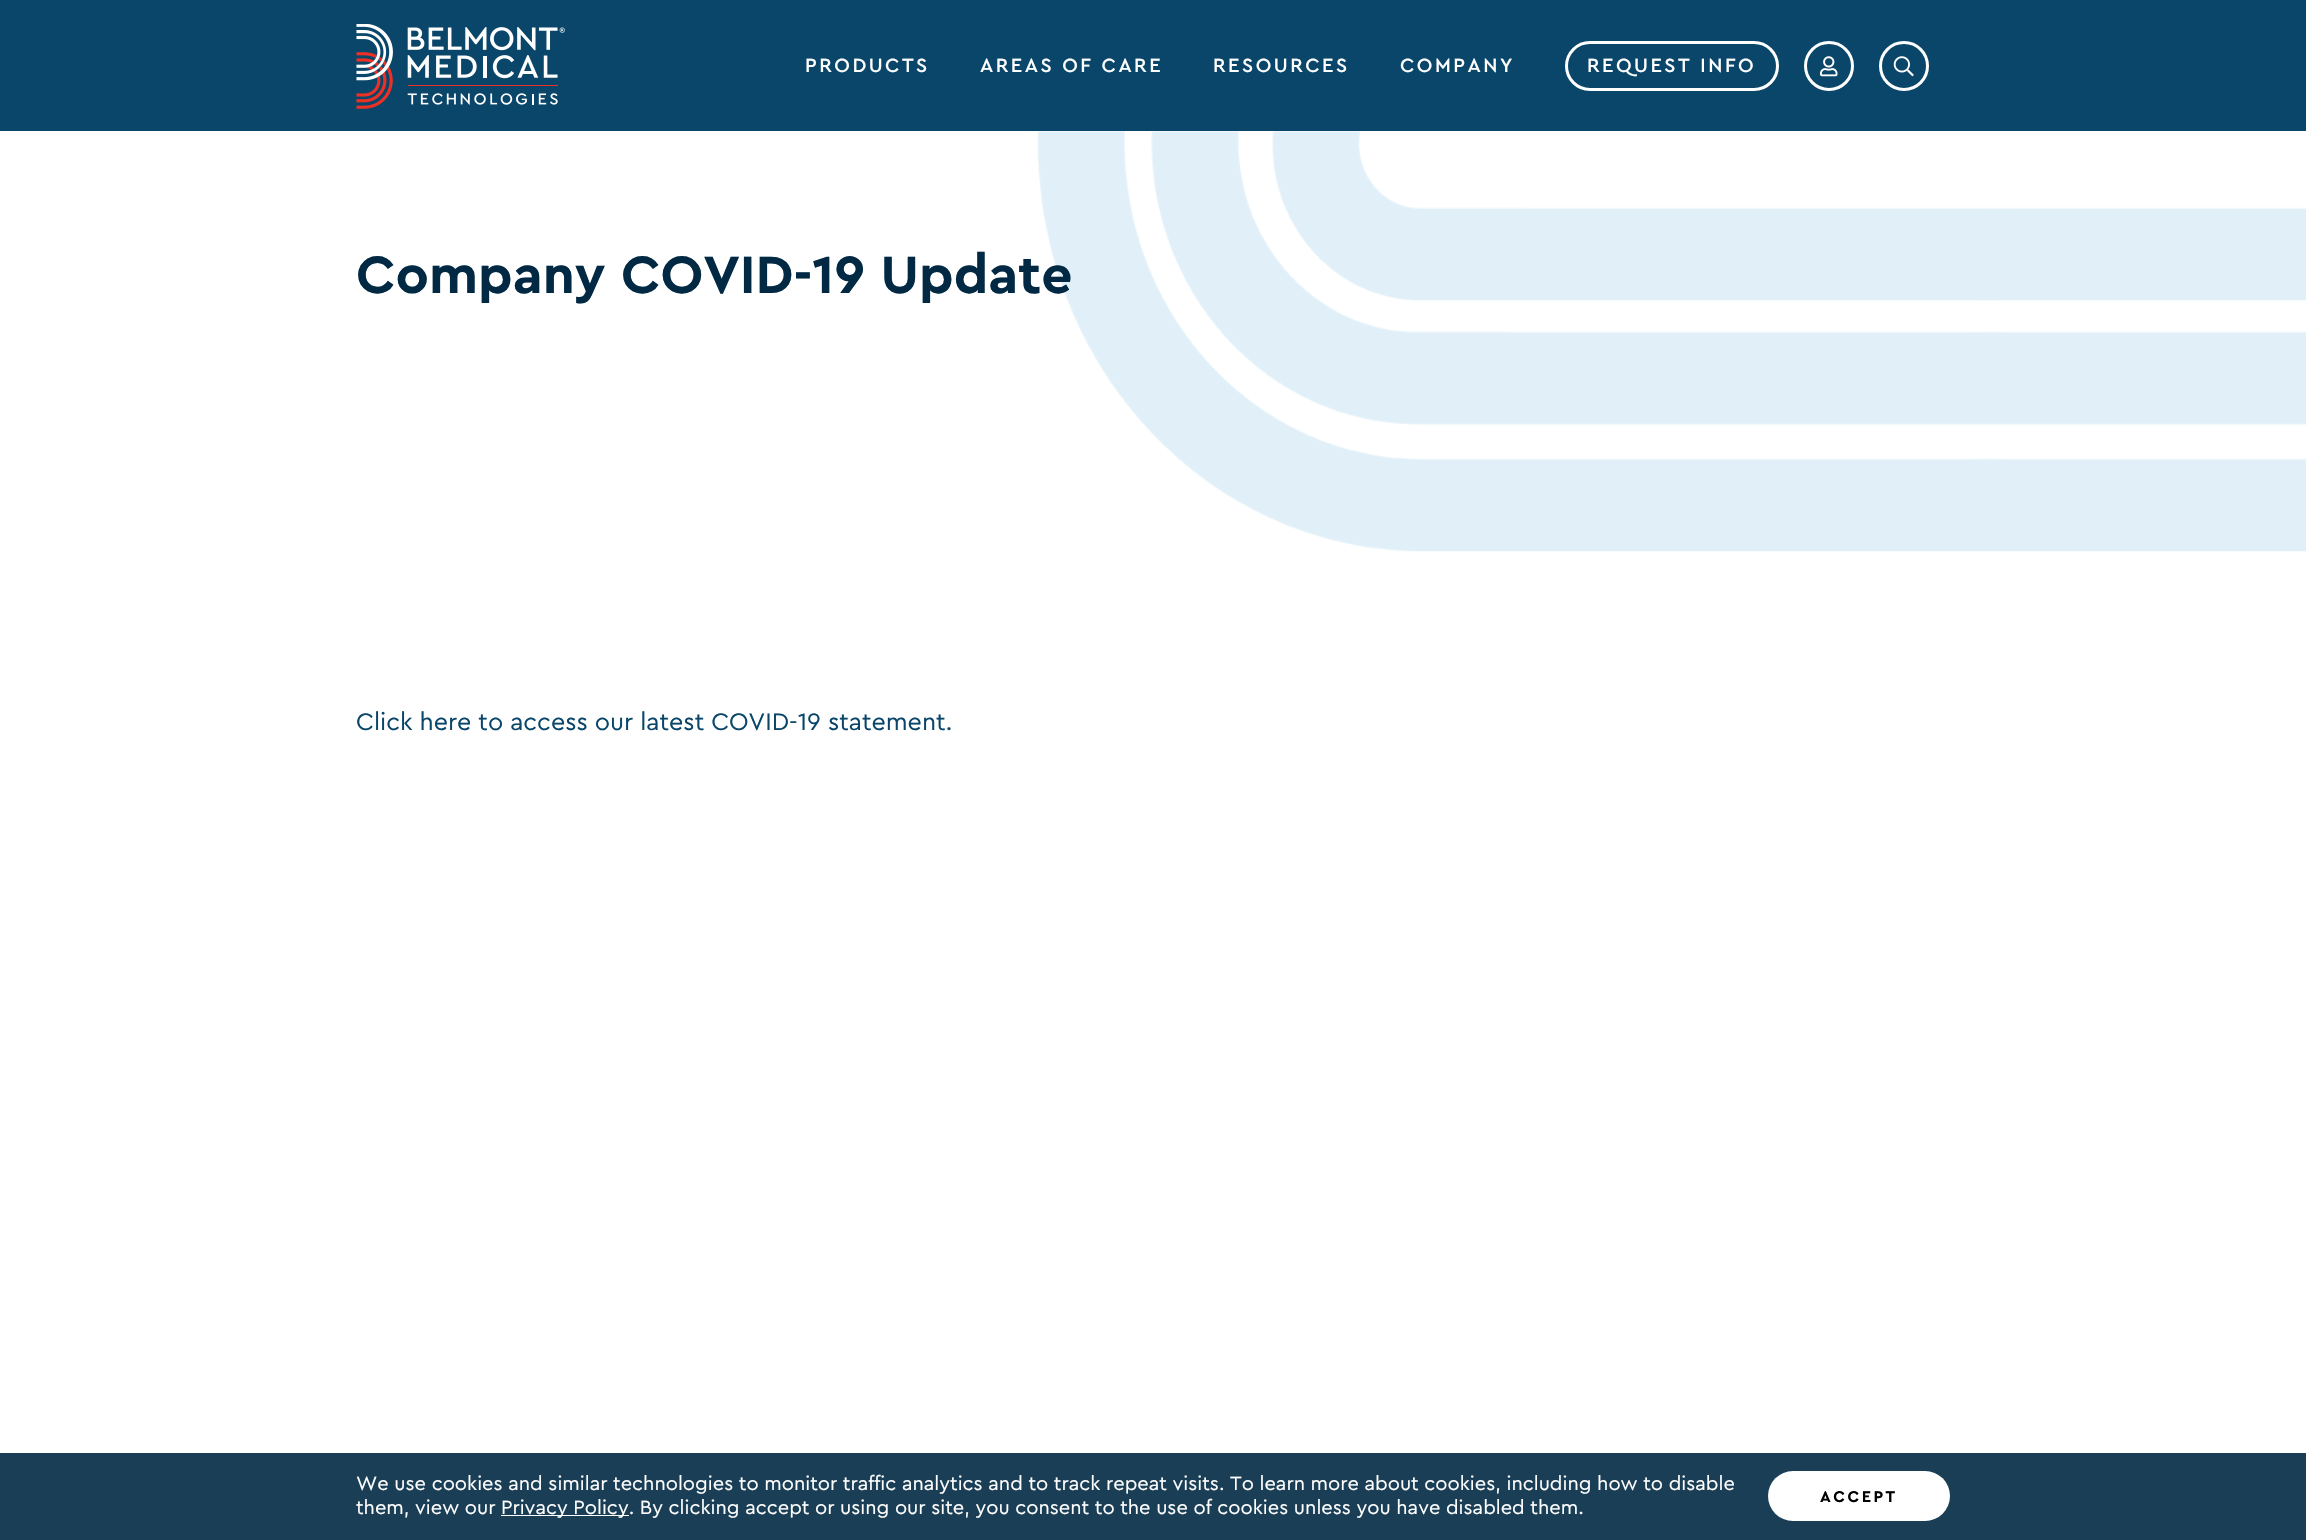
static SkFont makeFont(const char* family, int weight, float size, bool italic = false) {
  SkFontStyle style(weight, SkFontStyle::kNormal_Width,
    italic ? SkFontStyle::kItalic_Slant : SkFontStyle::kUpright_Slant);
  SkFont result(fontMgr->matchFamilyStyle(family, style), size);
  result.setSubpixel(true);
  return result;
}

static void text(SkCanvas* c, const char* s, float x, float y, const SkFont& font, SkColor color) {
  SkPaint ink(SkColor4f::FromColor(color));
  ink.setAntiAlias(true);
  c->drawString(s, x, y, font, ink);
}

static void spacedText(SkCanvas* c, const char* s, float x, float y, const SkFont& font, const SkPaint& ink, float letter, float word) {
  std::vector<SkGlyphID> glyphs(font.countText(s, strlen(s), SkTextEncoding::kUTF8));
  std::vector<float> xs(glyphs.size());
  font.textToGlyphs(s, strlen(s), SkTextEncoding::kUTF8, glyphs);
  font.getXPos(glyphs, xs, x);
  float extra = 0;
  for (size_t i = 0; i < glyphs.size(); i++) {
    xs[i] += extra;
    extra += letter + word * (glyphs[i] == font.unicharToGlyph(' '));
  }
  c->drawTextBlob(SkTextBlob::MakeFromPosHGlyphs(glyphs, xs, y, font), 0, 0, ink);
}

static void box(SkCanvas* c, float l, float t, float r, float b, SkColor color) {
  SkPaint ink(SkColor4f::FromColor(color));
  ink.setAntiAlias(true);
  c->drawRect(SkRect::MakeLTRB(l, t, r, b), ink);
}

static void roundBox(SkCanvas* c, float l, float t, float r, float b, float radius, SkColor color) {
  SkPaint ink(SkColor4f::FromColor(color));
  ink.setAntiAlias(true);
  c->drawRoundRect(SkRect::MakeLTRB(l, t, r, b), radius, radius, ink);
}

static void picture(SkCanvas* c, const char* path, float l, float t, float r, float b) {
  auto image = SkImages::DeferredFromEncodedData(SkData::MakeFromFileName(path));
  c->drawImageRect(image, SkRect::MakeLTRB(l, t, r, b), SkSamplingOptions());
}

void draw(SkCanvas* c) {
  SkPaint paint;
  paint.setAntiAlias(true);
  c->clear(0xffffffff);
  box(c, 0, 0, 2306, 131, 0xff094669);
  picture(c, "img_01.png", 356, 24, 565, 109);
  SkFont face1 = makeFont("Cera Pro", 500, 20);
  paint.setColor(0xffffffff);
  spacedText(c, "PRODUCTS", 805, 72, face1, paint, 2.5f, 0);
  spacedText(c, "AREAS OF CARE", 980, 72, face1, paint, 2.5f, 0);
  spacedText(c, "RESOURCES", 1213, 72, face1, paint, 2.5f, 0);
  spacedText(c, "COMPANY", 1400, 72, face1, paint, 2.5f, 0);
  paint.setStyle(SkPaint::kStroke_Style);
  paint.setStrokeWidth(3);
  c->drawRoundRect(SkRect::MakeLTRB(1566.5f, 42.5f, 1777.5f, 89.5f), 23.5f, 23.5f, paint);
  paint.setStyle(SkPaint::kFill_Style);
  spacedText(c, "REQUEST INFO", 1587, 72, face1, paint, 2.5f, 0);
  paint.setStyle(SkPaint::kStroke_Style);
  c->drawCircle(1829, 66, 23.5f, paint);
  picture(c, "img_02.png", 1820, 56, 1838, 77);
  c->drawCircle(1904, 66, 23.5f, paint);
  picture(c, "img_03.png", 1893, 56, 1914, 77);
  picture(c, "img_04.png", 1037, 131, 2306, 552);
  SkFont face2 = makeFont("Cera Pro", 700, 55);
  text(c, "Company COVID-19 Update", 356, 293, face2, 0xff022943);
  SkFont face3 = makeFont("Cera Pro", 400, 25);
  text(c, "Click here to access our latest COVID-19 statement.", 356, 730, face3, 0xff094669);
  box(c, 0, 1453, 2306, 1540, 0xff1a3e56);
  SkFont face4 = makeFont("Cera Pro", 400, 20);
  text(c, "We use cookies and similar technologies to monitor traffic analytics and to track repeat visits. To learn more about cookies, including how to disable", 356, 1490, face4, 0xffffffff);
  text(c, "them, view our", 356, 1514, face4, 0xffffffff);
  box(c, 501, 1515, 629, 1516, 0xffffffff);
  text(c, "Privacy Policy. By clicking accept or using our site, you consent to the use of cookies unless you have disabled them.", 501, 1514, face4, 0xffffffff);
  roundBox(c, 1768, 1471, 1950, 1521, 25, 0xffffffff);
  SkFont face5 = makeFont("Cera Pro", 700, 16.25f);
  paint.setStyle(SkPaint::kFill_Style);
  paint.setColor(0xff000000);
  spacedText(c, "ACCEPT", 1820, 1502, face5, paint, 2.5f, 0);
}
